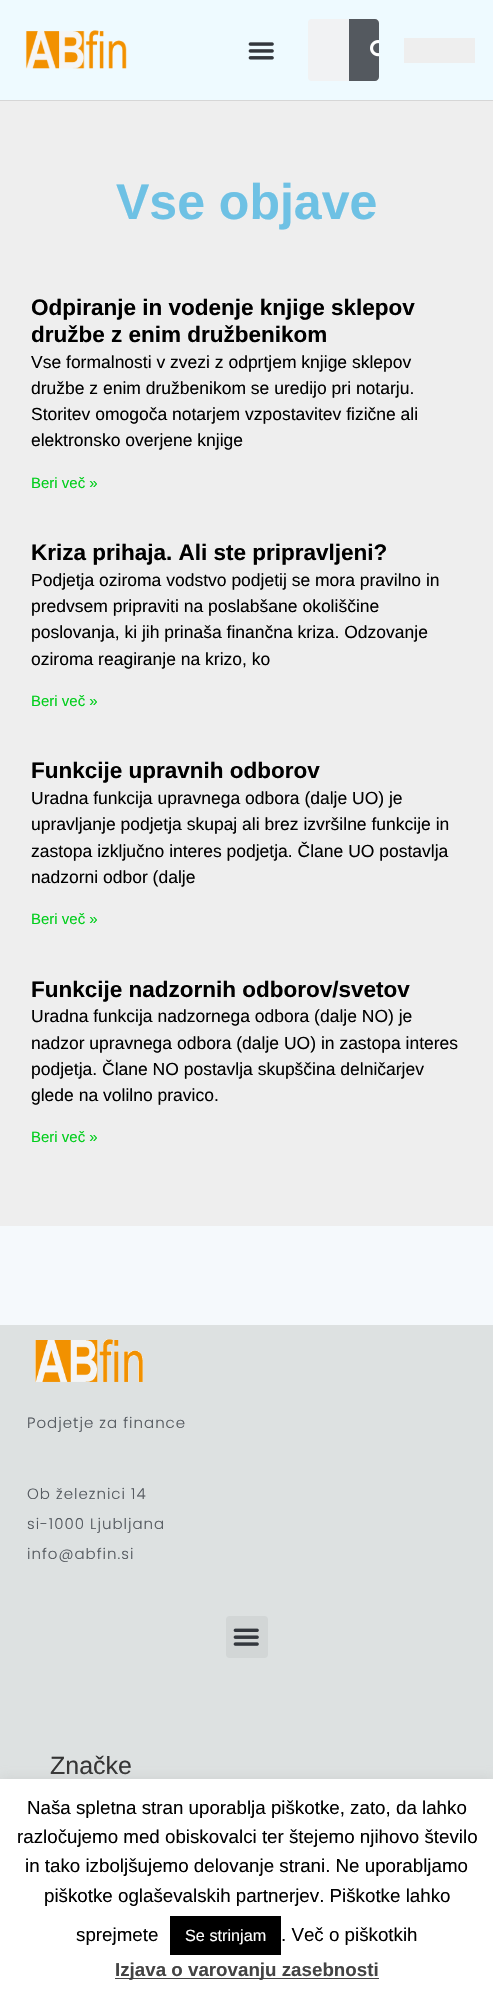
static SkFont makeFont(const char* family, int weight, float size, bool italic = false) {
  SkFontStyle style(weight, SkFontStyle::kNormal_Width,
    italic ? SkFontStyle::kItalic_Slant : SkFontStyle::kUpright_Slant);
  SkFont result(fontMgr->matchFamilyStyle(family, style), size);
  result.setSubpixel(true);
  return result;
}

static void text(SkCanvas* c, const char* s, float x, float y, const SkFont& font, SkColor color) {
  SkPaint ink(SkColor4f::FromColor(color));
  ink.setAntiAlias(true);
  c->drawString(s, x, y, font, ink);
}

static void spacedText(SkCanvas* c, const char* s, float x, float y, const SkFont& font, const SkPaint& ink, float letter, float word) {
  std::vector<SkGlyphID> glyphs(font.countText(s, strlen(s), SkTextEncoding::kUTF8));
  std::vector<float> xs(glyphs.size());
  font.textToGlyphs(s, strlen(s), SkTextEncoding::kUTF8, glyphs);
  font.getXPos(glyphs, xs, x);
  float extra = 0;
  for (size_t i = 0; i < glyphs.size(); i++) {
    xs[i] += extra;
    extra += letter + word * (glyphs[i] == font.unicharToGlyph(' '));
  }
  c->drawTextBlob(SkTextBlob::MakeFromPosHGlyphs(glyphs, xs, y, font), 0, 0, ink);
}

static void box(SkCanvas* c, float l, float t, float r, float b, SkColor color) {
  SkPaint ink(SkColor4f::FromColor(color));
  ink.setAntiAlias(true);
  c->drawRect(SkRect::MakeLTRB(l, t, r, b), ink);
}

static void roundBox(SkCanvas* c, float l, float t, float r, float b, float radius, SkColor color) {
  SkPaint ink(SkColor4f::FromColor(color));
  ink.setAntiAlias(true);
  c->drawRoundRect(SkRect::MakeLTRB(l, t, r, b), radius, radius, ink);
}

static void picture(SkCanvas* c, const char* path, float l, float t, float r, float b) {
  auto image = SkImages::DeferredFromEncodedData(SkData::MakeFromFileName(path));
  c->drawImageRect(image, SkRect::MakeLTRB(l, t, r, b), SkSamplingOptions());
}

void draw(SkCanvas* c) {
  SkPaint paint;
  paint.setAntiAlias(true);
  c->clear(0xfff5f9fc);
  box(c, 0, 0, 493, 100, 0xffeefaff);
  box(c, 0, 100, 493, 101, 0xffd6d6d6);
  picture(c, "img_01.png", 25, 30, 127, 69);
  picture(c, "img_02.png", 248, 42, 274, 60);
  roundBox(c, 308, 19, 379, 81, 4, 0xfff1f2f3);
  paint.setColor(0xff54595f);
  c->drawPath(SkPathBuilder().moveTo(349, 19).lineTo(375, 19).cubicTo(377, 19, 379, 21, 379, 23).lineTo(379, 77).cubicTo(379, 79, 377, 81, 375, 81).lineTo(349, 81).close().detach(), paint);
  picture(c, "img_03.png", 370, 40, 379, 57);
  box(c, 404, 38, 475, 63, 0xffeeeeee);
  box(c, 0, 101, 493, 1226, 0xffeeeeee);
  SkFont face1 = makeFont("Liberation Sans", 700, 50);
  text(c, "Vse objave", 116, 219, face1, 0xff6ec1e4);
  SkFont face2 = makeFont("Liberation Sans", 700, 22.5f);
  text(c, "Odpiranje in vodenje knjige sklepov", 31, 315, face2, 0xff000000);
  text(c, "družbe z enim družbenikom", 31, 342, face2, 0xff000000);
  SkFont face3 = makeFont("Liberation Sans", 400, 17.5f);
  text(c, "Vse formalnosti v zvezi z odprtjem knjige sklepov", 31, 368, face3, 0xff000000);
  text(c, "družbe z enim družbenikom se uredijo pri notarju.", 31, 394, face3, 0xff000000);
  text(c, "Storitev omogoča notarjem vzpostavitev fizične ali", 31, 420, face3, 0xff000000);
  text(c, "elektronsko overjene knjige", 31, 446, face3, 0xff000000);
  SkFont face4 = makeFont("Liberation Sans", 400, 15);
  text(c, "Beri več »", 31, 488, face4, 0xff00ce1b);
  text(c, "Kriza prihaja. Ali ste pripravljeni?", 31, 560, face2, 0xff000000);
  text(c, "Podjetja oziroma vodstvo podjetij se mora pravilno in", 31, 586, face3, 0xff000000);
  text(c, "predvsem pripraviti na poslabšane okoliščine", 31, 612, face3, 0xff000000);
  text(c, "poslovanja, ki jih prinaša finančna kriza. Odzovanje", 31, 638, face3, 0xff000000);
  text(c, "oziroma reagiranje na krizo, ko", 31, 665, face3, 0xff000000);
  text(c, "Beri več »", 31, 706, face4, 0xff00ce1b);
  text(c, "Funkcije upravnih odborov", 31, 778, face2, 0xff000000);
  text(c, "Uradna funkcija upravnega odbora (dalje UO) je", 31, 804, face3, 0xff000000);
  text(c, "upravljanje podjetja skupaj ali brez izvršilne funkcije in", 31, 830, face3, 0xff000000);
  text(c, "zastopa izključno interes podjetja. Člane UO postavlja", 31, 857, face3, 0xff000000);
  text(c, "nadzorni odbor (dalje", 31, 883, face3, 0xff000000);
  text(c, "Beri več »", 31, 924, face4, 0xff00ce1b);
  text(c, "Funkcije nadzornih odborov/svetov", 31, 997, face2, 0xff000000);
  text(c, "Uradna funkcija nadzornega odbora (dalje NO) je", 31, 1022, face3, 0xff000000);
  text(c, "nadzor upravnega odbora (dalje UO) in zastopa interes", 31, 1049, face3, 0xff000000);
  text(c, "podjetja. Člane NO postavlja skupščina delničarjev", 31, 1075, face3, 0xff000000);
  text(c, "glede na volilno pravico.", 31, 1101, face3, 0xff000000);
  text(c, "Beri več »", 31, 1142, face4, 0xff00ce1b);
  box(c, 0, 1325, 493, 1779, 0xffdde1e1);
  picture(c, "img_04.png", 35, 1339, 143, 1382);
  SkFont face5 = makeFont("Poppins", 300, 15);
  spacedText(c, "Podjetje za finance", 27, 1428, face5, paint, 1, 0);
  spacedText(c, "Ob železnici 14", 27, 1499, face5, paint, 1, 0);
  spacedText(c, "si-1000 Ljubljana", 27, 1529, face5, paint, 1, 0);
  spacedText(c, "info@abfin.si", 27, 1559, face5, paint, 1, 0);
  roundBox(c, 226, 1616, 268, 1658, 4, 0xffd2d6d6);
  picture(c, "img_05.png", 233, 1628, 259, 1646);
  SkFont face6 = makeFont("Liberation Sans", 400, 25);
  text(c, "Značke", 50, 1774, face6, 0xff333333);
  paint.setColor(0x4dacabab);
  paint.setMaskFilter(SkMaskFilter::MakeBlur(kNormal_SkBlurStyle, 6));
  c->drawRect(SkRect::MakeLTRB(0, 1778, 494, 1998), paint);
  paint.setMaskFilter(nullptr);
  box(c, 0, 1779, 493, 1998, 0xffffffff);
  SkFont face7 = makeFont("Liberation Sans", 400, 18.75f);
  text(c, "Naša spletna stran uporablja piškotke, zato, da lahko", 27, 1814, face7, 0xff000000);
  text(c, "razločujemo med obiskovalci ter štejemo njihovo število", 17, 1843, face7, 0xff000000);
  text(c, "in tako izboljšujemo delovanje strani. Ne uporabljamo", 25, 1872, face7, 0xff000000);
  text(c, "piškotke oglaševalskih partnerjev. Piškotke lahko", 44, 1902, face7, 0xff000000);
  text(c, "sprejmete", 76, 1941, face7, 0xff000000);
  box(c, 170, 1916, 281, 1955, 0xff000000);
  SkFont face8 = makeFont("Liberation Sans", 400, 16.25f);
  text(c, "Se strinjam", 185, 1941, face8, 0xffffffff);
  text(c, ". Več o piškotkih", 281, 1941, face7, 0xff000000);
  box(c, 115, 1978, 379, 1979, 0xff444444);
  SkFont face9 = makeFont("Liberation Sans", 700, 18.75f);
  text(c, "Izjava o varovanju zasebnosti", 115, 1976, face9, 0xff444444);
}
